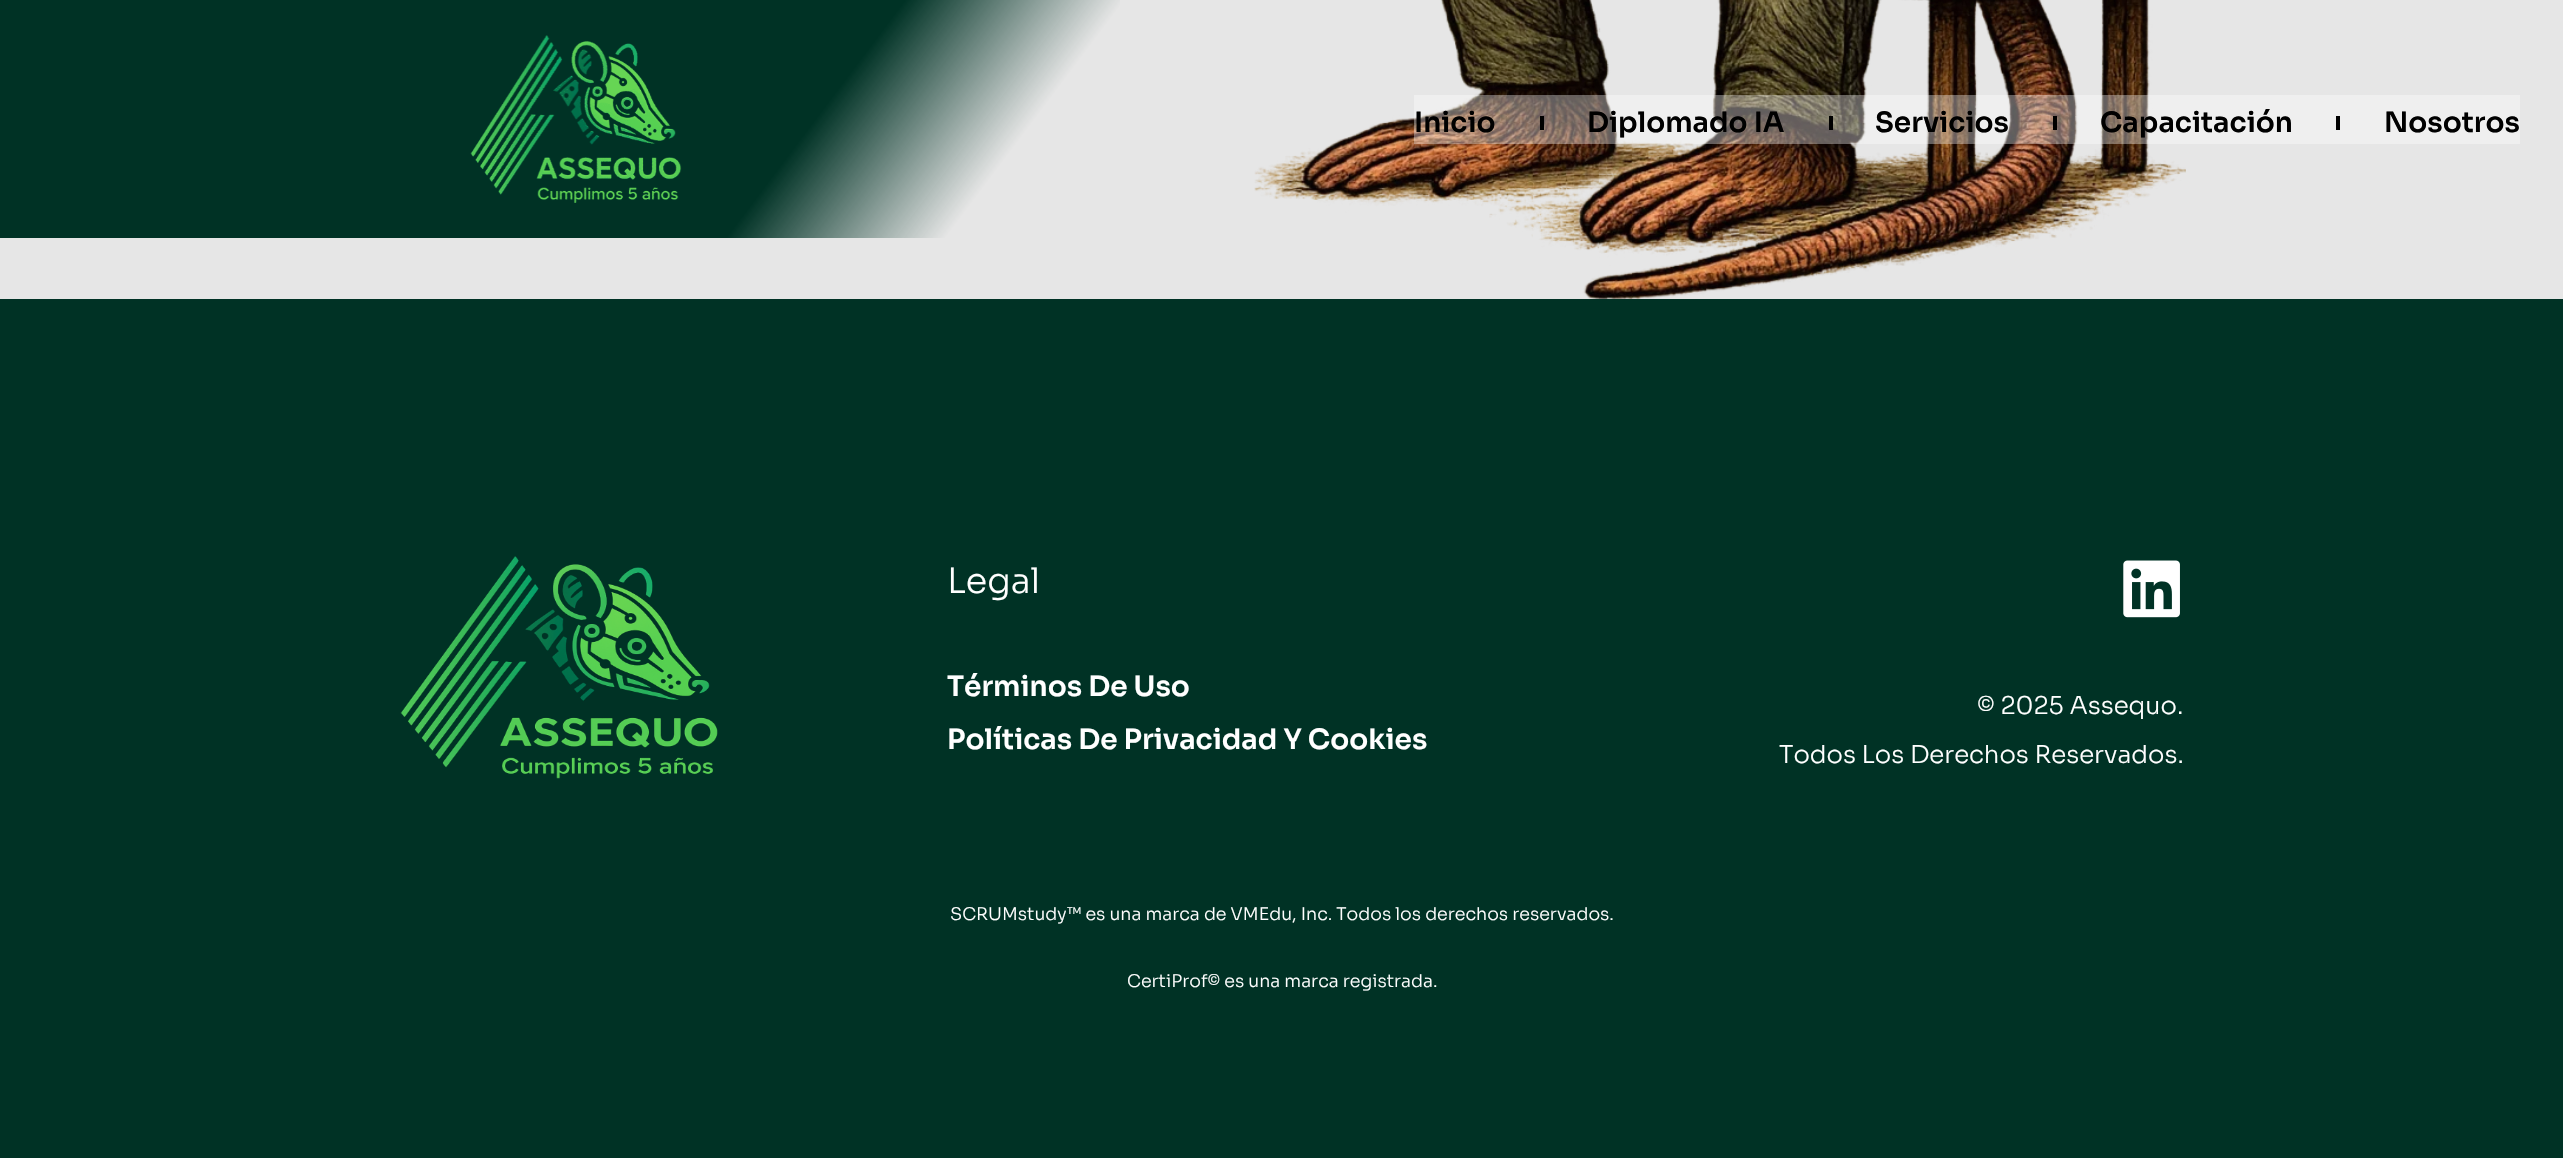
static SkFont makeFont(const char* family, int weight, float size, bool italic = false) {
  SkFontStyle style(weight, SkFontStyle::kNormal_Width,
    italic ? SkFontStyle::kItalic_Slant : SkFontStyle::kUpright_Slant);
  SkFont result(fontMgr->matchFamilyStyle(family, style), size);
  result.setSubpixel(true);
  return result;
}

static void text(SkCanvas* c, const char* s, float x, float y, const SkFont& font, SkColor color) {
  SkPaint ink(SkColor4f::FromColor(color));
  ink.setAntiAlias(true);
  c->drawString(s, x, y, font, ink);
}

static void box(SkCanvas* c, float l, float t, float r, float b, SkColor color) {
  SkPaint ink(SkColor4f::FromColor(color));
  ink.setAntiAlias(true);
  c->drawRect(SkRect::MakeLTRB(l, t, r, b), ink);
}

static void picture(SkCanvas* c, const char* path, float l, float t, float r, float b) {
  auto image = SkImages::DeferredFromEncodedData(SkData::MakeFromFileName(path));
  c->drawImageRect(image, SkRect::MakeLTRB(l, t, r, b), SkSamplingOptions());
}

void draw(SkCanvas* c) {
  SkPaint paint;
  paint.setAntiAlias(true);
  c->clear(0xffe6e6e6);
  picture(c, "img_01.png", 1254, 0, 2186, 299);
  {
    const SkColor colors[] = {0xff003225, 0x00003225};
    const float stops[] = {0.33f, 0.41f};
    const SkPoint ends[] = {{407, -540}, {2157, 778}};
    paint.setShader(SkGradientShader::MakeLinear(ends, colors, stops, 2, SkTileMode::kClamp));
    paint.setAlpha(255);
  }
  c->drawRect(SkRect::MakeLTRB(0, 0, 1120, 238), paint);
  picture(c, "img_02.png", 470, 35, 682, 203);
  box(c, 1414, 95, 2520, 144, 0x5cffffff);
  SkFont face1 = makeFont("Sora", 600, 28);
  text(c, "Inicio", 1414, 132, face1, 0xff000000);
  box(c, 1540, 116, 1544, 130, 0xff000000);
  text(c, "Diplomado IA", 1587, 132, face1, 0xff000000);
  box(c, 1829, 116, 1833, 130, 0xff000000);
  text(c, "Servicios", 1875, 132, face1, 0xff000000);
  box(c, 2053, 116, 2057, 130, 0xff000000);
  text(c, "Capacitación", 2100, 132, face1, 0xff000000);
  box(c, 2336, 116, 2340, 130, 0xff000000);
  text(c, "Nosotros", 2384, 132, face1, 0xff000000);
  box(c, 0, 299, 2563, 1158, 0xff003225);
  picture(c, "img_03.png", 400, 556, 718, 779);
  SkFont face2 = makeFont("Sora", 300, 35);
  text(c, "Legal", 947, 593, face2, 0xffffffff);
  text(c, "Términos De Uso", 947, 696, face1, 0xffffffff);
  text(c, "Políticas De Privacidad Y Cookies", 947, 749, face1, 0xffffffff);
  picture(c, "img_04.png", 2123, 560, 2180, 618);
  SkFont face3 = makeFont("Sora", 300, 24.5f);
  text(c, "© 2025 Assequo.", 1977, 714, face3, 0xffffffff);
  text(c, "Todos Los Derechos Reservados.", 1779, 763, face3, 0xffffffff);
  SkFont face4 = makeFont("Sora", 300, 17.5f);
  text(c, "SCRUMstudy™ es una marca de VMEdu, Inc. Todos los derechos reservados.", 950, 920, face4, 0xffffffff);
  text(c, "CertiProf© es una marca registrada.", 1127, 987, face4, 0xffffffff);
}
